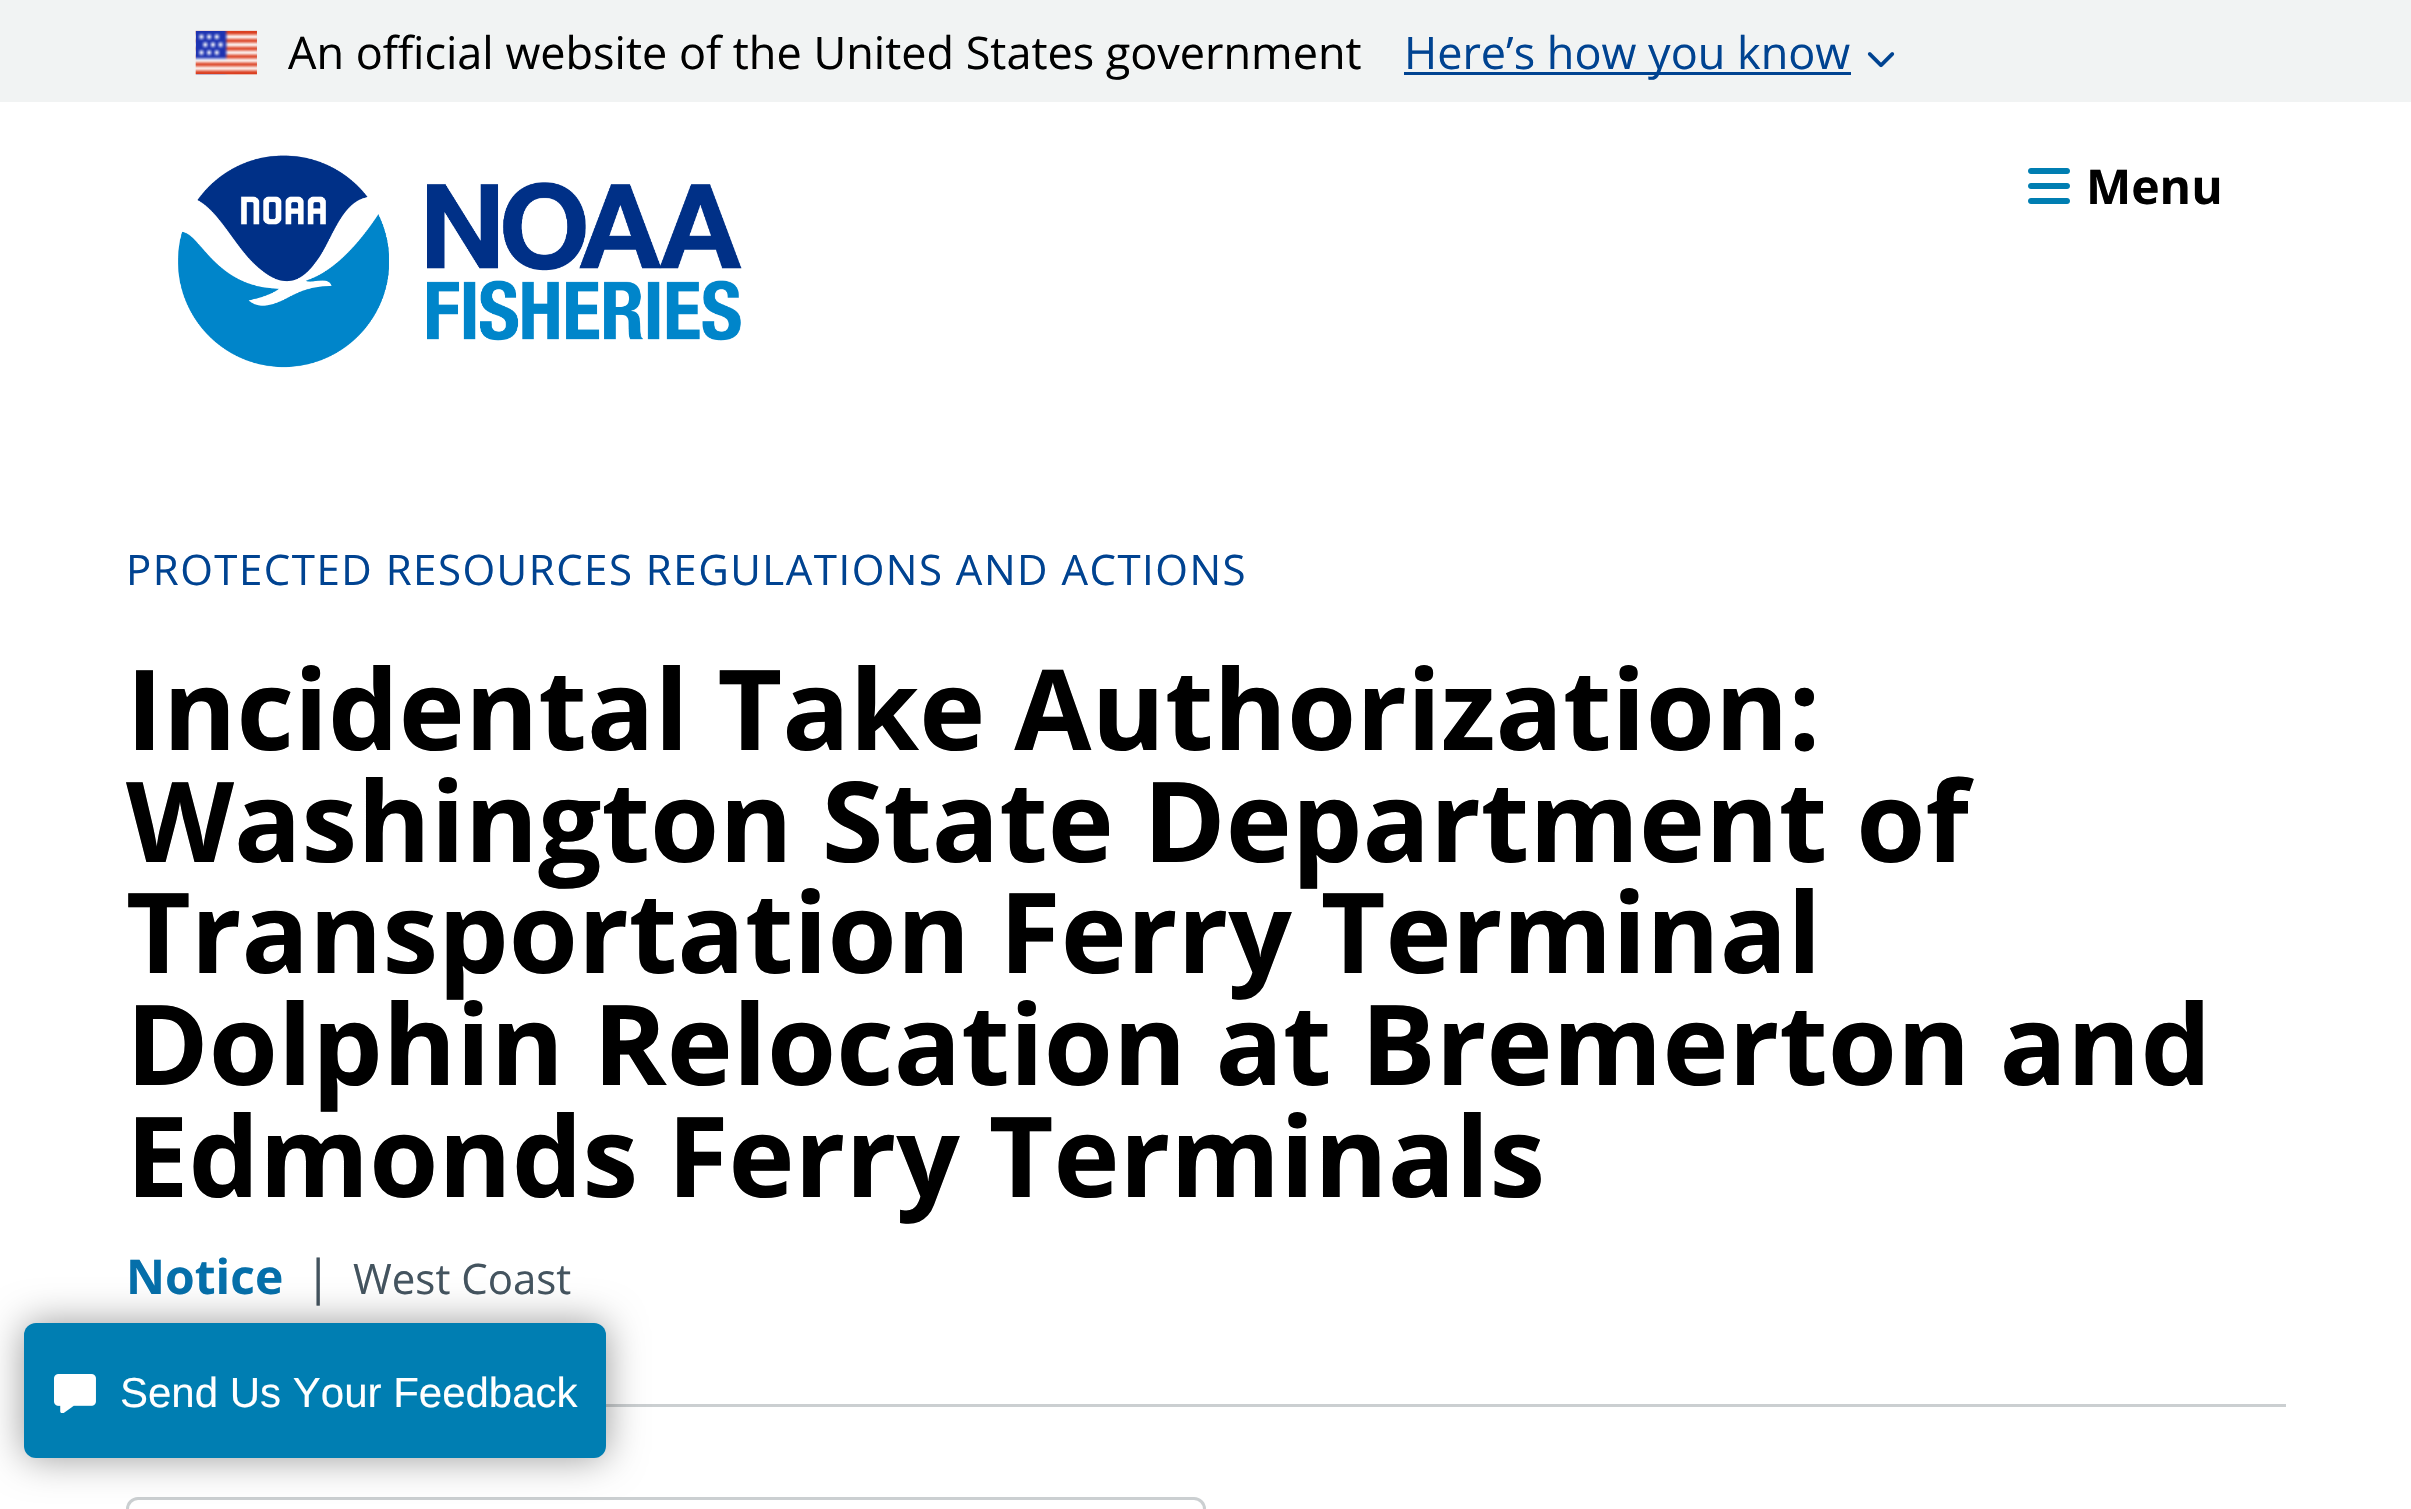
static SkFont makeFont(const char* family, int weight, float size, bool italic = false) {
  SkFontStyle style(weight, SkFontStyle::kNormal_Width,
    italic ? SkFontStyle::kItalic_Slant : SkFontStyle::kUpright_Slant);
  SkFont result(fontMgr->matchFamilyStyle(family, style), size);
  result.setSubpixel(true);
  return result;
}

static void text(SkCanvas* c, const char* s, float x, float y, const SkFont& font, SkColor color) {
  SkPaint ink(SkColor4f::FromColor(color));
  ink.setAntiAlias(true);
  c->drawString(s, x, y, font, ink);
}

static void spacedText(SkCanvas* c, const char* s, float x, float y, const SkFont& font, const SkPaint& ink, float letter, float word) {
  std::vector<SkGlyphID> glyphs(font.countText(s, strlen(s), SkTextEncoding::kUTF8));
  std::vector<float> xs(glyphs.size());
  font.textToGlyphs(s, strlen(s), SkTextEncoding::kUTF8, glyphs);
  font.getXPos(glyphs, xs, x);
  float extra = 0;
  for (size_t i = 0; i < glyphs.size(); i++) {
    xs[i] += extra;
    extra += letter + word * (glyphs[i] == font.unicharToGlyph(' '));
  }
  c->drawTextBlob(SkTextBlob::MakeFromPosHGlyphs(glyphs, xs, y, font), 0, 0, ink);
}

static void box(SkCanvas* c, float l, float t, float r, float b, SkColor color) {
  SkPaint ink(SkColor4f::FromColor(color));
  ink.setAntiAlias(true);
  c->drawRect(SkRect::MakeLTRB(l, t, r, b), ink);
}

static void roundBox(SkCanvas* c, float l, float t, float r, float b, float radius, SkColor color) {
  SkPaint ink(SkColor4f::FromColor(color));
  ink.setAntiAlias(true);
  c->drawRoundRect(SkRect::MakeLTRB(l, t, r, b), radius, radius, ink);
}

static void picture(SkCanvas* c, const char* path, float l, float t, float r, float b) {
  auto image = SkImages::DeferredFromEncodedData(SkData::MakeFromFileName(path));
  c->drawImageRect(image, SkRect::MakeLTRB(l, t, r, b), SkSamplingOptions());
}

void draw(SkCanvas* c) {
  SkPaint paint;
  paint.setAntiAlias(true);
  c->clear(0xffffffff);
  box(c, 0, 0, 2411, 102, 0xfff1f3f3);
  picture(c, "img_01.png", 195, 30, 257, 75);
  SkFont face1 = makeFont("Open Sans", 400, 45);
  text(c, "An official website of the United States government", 288, 69, face1, 0xff000000);
  box(c, 1404, 72, 1851, 75, 0xff004391);
  text(c, "Here’s how you know", 1404, 69, face1, 0xff004391);
  picture(c, "img_02.png", 1867, 52, 1895, 68);
  picture(c, "img_03.png", 178, 155, 742, 368);
  picture(c, "img_04.png", 2028, 168, 2070, 204);
  SkFont face2 = makeFont("Open Sans", 700, 48);
  text(c, "Menu", 2086, 204, face2, 0xff000000);
  box(c, 606, 1404, 2286, 1407, 0xffcbcfd1);
  SkFont face3 = makeFont("Open Sans", 400, 42);
  paint.setColor(0xff004391);
  spacedText(c, "PROTECTED RESOURCES REGULATIONS AND ACTIONS", 126, 585, face3, paint, 1.5f, 0);
  SkFont face4 = makeFont("Open Sans", 700, 111.8f);
  text(c, "Incidental Take Authorization:", 126, 750, face4, 0xff000000);
  text(c, "Washington State Department of", 126, 862, face4, 0xff000000);
  text(c, "Transportation Ferry Terminal", 126, 973, face4, 0xff000000);
  text(c, "Dolphin Relocation at Bremerton and", 126, 1085, face4, 0xff000000);
  text(c, "Edmonds Ferry Terminals", 126, 1197, face4, 0xff000000);
  text(c, "Notice", 126, 1294, face2, 0xff056faa);
  SkFont face5 = makeFont("Open Sans", 400, 48);
  text(c, "|", 305, 1294, face5, 0xff44545f);
  text(c, "West Coast", 353, 1294, face3, 0xff44545f);
  paint.setStyle(SkPaint::kStroke_Style);
  paint.setStrokeWidth(3);
  paint.setColor(0xffcbcfd1);
  c->drawRoundRect(SkRect::MakeLTRB(127.5f, 1498.5f, 1204.5f, 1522.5f), 10.5f, 10.5f, paint);
  paint.setStyle(SkPaint::kFill_Style);
  paint.setColor(0x66000000);
  paint.setMaskFilter(SkMaskFilter::MakeBlur(kNormal_SkBlurStyle, 19));
  c->drawRoundRect(SkRect::MakeLTRB(24, 1323, 606, 1458), 12, 12, paint);
  paint.setMaskFilter(nullptr);
  roundBox(c, 24, 1323, 606, 1458, 12, 0xff007eb2);
  picture(c, "img_05.png", 54, 1374, 96, 1413);
  SkFont face6 = makeFont("Liberation Sans", 400, 42);
  text(c, "Send Us Your Feedback", 120, 1407, face6, 0xffffffff);
}
